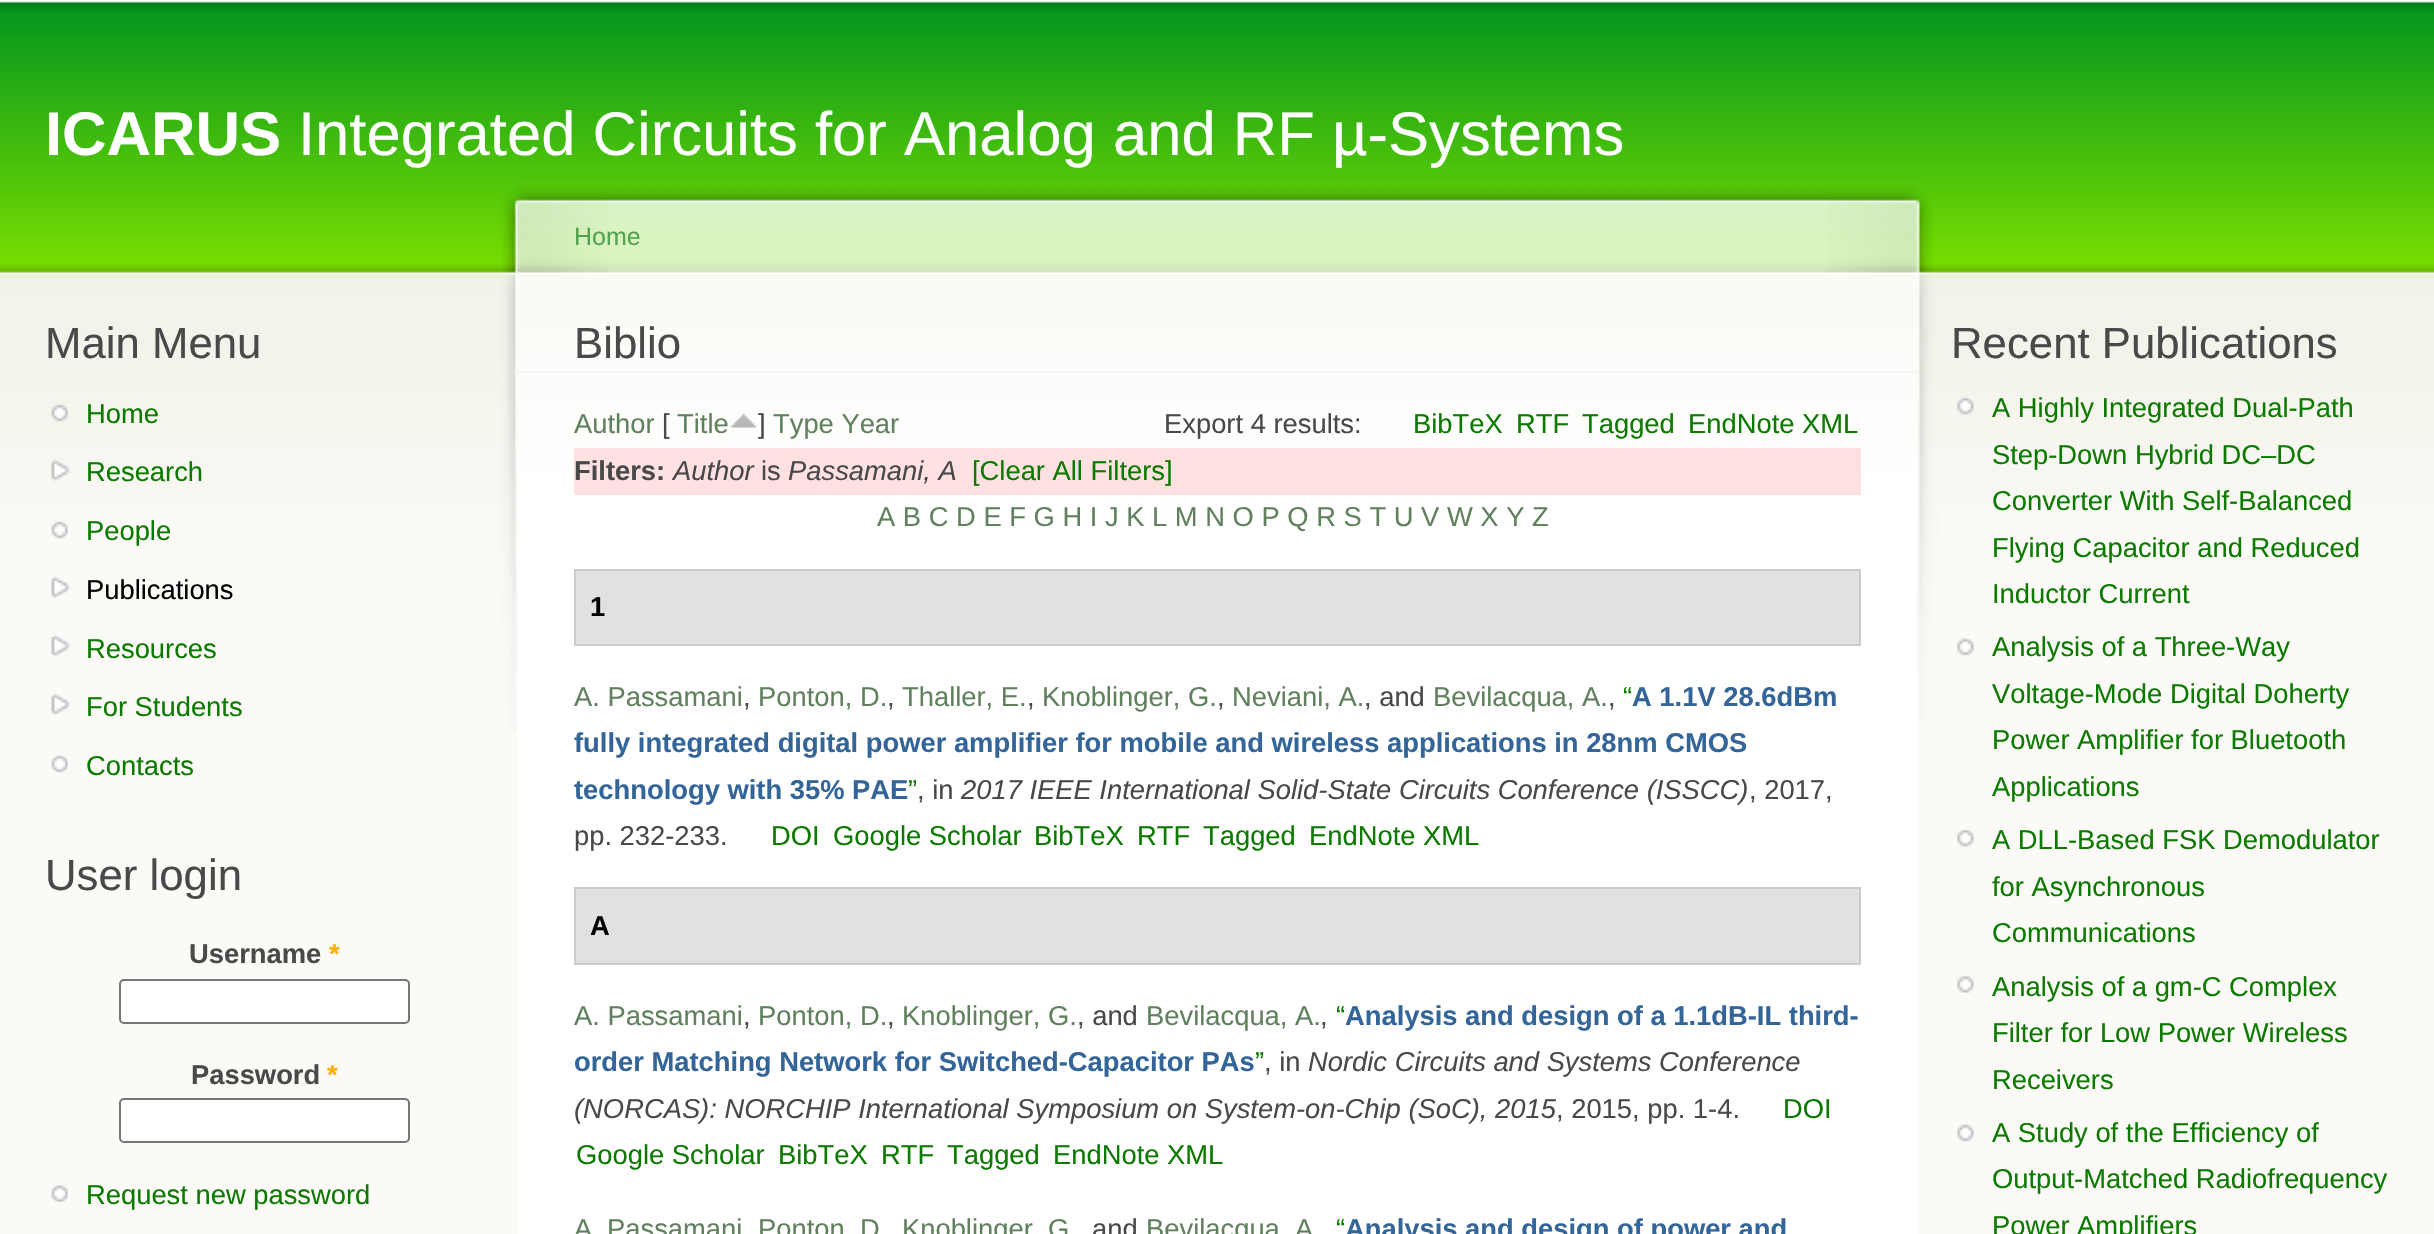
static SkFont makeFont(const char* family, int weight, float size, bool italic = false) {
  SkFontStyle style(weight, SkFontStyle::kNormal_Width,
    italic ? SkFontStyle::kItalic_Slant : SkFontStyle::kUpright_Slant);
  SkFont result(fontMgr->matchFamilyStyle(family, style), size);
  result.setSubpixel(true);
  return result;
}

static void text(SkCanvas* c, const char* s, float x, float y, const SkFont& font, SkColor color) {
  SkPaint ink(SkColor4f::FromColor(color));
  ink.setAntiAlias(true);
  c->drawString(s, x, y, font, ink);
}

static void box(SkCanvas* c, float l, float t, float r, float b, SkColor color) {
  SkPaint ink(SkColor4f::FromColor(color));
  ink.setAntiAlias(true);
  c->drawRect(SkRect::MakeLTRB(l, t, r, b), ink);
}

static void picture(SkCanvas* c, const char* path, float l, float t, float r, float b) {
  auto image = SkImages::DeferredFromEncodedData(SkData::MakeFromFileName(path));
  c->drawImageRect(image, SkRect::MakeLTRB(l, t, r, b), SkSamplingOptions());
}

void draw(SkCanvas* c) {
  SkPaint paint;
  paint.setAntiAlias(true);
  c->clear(0xfffbfaf7);
  picture(c, "img_01.png", 0, 0, 2434, 505);
  SkFont face1 = makeFont("Liberation Sans", 700, 61.6f);
  text(c, "ICARUS", 45, 155, face1, 0xffffffff);
  SkFont face2 = makeFont("Liberation Sans", 400, 61.6f);
  text(c, "Integrated Circuits for Analog and RF µ-Systems", 298, 155, face2, 0xffffffff);
  SkFont face3 = makeFont("Liberation Sans", 400, 43.75f);
  text(c, "Main Menu", 45, 358, face3, 0xff494949);
  picture(c, "img_02.png", 51, 404, 68, 422);
  SkFont face4 = makeFont("Liberation Sans", 400, 27.35f);
  text(c, "Home", 86, 423, face4, 0xff0c7a00);
  picture(c, "img_03.png", 51, 459, 70, 482);
  text(c, "Research", 86, 481, face4, 0xff0c7a00);
  picture(c, "img_04.png", 51, 521, 68, 539);
  text(c, "People", 86, 540, face4, 0xff0c7a00);
  picture(c, "img_05.png", 51, 576, 70, 599);
  text(c, "Publications", 86, 599, face4, 0xff000000);
  picture(c, "img_06.png", 51, 634, 70, 657);
  text(c, "Resources", 86, 658, face4, 0xff0c7a00);
  picture(c, "img_07.png", 51, 693, 70, 716);
  text(c, "For Students", 86, 716, face4, 0xff0c7a00);
  picture(c, "img_04.png", 51, 755, 68, 773);
  text(c, "Contacts", 86, 775, face4, 0xff0c7a00);
  text(c, "User login", 45, 890, face3, 0xff494949);
  SkFont face5 = makeFont("Liberation Sans", 700, 27.35f);
  text(c, "Username", 189, 963, face5, 0xff494949);
  text(c, "*", 329, 963, face5, 0xffffae00);
  paint.setColor(0xffffffff);
  c->drawRoundRect(SkRect::MakeLTRB(120, 980, 409, 1023), 4, 4, paint);
  paint.setStyle(SkPaint::kStroke_Style);
  paint.setStrokeWidth(2);
  paint.setColor(0xff767676);
  c->drawRoundRect(SkRect::MakeLTRB(120, 980, 409, 1023), 4, 4, paint);
  text(c, "Password", 191, 1084, face5, 0xff494949);
  text(c, "*", 327, 1084, face5, 0xffffae00);
  paint.setStyle(SkPaint::kFill_Style);
  paint.setColor(0xffffffff);
  c->drawRoundRect(SkRect::MakeLTRB(120, 1099, 409, 1142), 4, 4, paint);
  paint.setStyle(SkPaint::kStroke_Style);
  paint.setColor(0xff767676);
  c->drawRoundRect(SkRect::MakeLTRB(120, 1099, 409, 1142), 4, 4, paint);
  picture(c, "img_08.png", 51, 1185, 68, 1202);
  text(c, "Request new password", 86, 1204, face4, 0xff0c7a00);
  box(c, 518, 646, 1917, 1234, 0xffffffff);
  picture(c, "img_09.png", 517, 180, 1917, 569);
  picture(c, "img_10.png", 1827, 189, 1939, 719);
  picture(c, "img_11.png", 495, 190, 608, 732);
  SkFont face6 = makeFont("Liberation Sans", 400, 25);
  text(c, "Home", 574, 245, face6, 0xff52a24f);
  box(c, 515, 371, 1919, 373, 0xfff6f6f5);
  text(c, "Biblio", 574, 358, face3, 0xff494949);
  text(c, "Author", 574, 433, face4, 0xff61815e);
  text(c, "[", 662, 433, face4, 0xff494949);
  text(c, "Title", 677, 433, face4, 0xff61815e);
  picture(c, "img_12.png", 730, 413, 757, 428);
  text(c, "]", 758, 433, face4, 0xff494949);
  text(c, "Type Year", 773, 433, face4, 0xff61815e);
  text(c, "Export 4 results:", 1164, 433, face4, 0xff494949);
  text(c, "BibTeX", 1413, 433, face4, 0xff0c7a00);
  text(c, "RTF", 1516, 433, face4, 0xff0c7a00);
  text(c, "Tagged", 1582, 433, face4, 0xff0c7a00);
  text(c, "EndNote XML", 1688, 433, face4, 0xff0c7a00);
  box(c, 574, 448, 1861, 495, 0xffffe1e1);
  text(c, "Filters:", 574, 480, face5, 0xff494949);
  SkFont face7 = makeFont("Liberation Sans", 400, 27.35f, true);
  text(c, "Author", 673, 480, face7, 0xff494949);
  text(c, "is", 761, 480, face4, 0xff494949);
  text(c, "Passamani, A", 788, 480, face7, 0xff494949);
  text(c, "[Clear All Filters]", 972, 480, face4, 0xff0c7a00);
  text(c, "A B C D E F G H I J K L M N O P Q R S T U V W X Y Z", 877, 526, face4, 0xff61815e);
  paint.setStyle(SkPaint::kFill_Style);
  paint.setColor(0xffe1e1e1);
  c->drawRect(SkRect::MakeLTRB(575, 570, 1860, 645), paint);
  paint.setStyle(SkPaint::kStroke_Style);
  paint.setColor(0xffcccccc);
  c->drawRect(SkRect::MakeLTRB(575, 570, 1860, 645), paint);
  text(c, "1", 590, 616, face5, 0xff000000);
  text(c, "A. Passamani", 574, 706, face4, 0xff61815e);
  text(c, "Ponton, D.", 758, 706, face4, 0xff61815e);
  text(c, "Thaller, E.", 902, 706, face4, 0xff61815e);
  text(c, "Knoblinger, G.", 1042, 706, face4, 0xff61815e);
  text(c, "Neviani, A.", 1232, 706, face4, 0xff61815e);
  text(c, ", and", 1364, 706, face4, 0xff494949);
  text(c, "Bevilacqua, A.", 1433, 706, face4, 0xff61815e);
  text(c, "“", 1623, 706, face4, 0xff0c7a00);
  text(c, "A 1.1V 28.6dBm", 1632, 706, face5, 0xff336599);
  text(c, ",", 743, 706, face4, 0xff494949);
  text(c, ",", 887, 706, face4, 0xff494949);
  text(c, ",", 1027, 706, face4, 0xff494949);
  text(c, ",", 1217, 706, face4, 0xff494949);
  text(c, ",", 1608, 706, face4, 0xff494949);
  text(c, "fully integrated digital power amplifier for mobile and wireless applications in 28nm CMOS", 574, 752, face5, 0xff336599);
  text(c, "technology with 35% PAE", 574, 799, face5, 0xff336599);
  text(c, "”", 908, 799, face4, 0xff0c7a00);
  text(c, ", in", 917, 799, face4, 0xff494949);
  text(c, "2017 IEEE International Solid-State Circuits Conference (ISSCC)", 961, 799, face7, 0xff494949);
  text(c, ", 2017,", 1749, 799, face4, 0xff494949);
  text(c, "pp. 232-233.", 574, 845, face4, 0xff494949);
  text(c, "DOI", 771, 845, face4, 0xff0c7a00);
  text(c, "Google Scholar", 833, 845, face4, 0xff0c7a00);
  text(c, "BibTeX", 1034, 845, face4, 0xff0c7a00);
  text(c, "RTF", 1137, 845, face4, 0xff0c7a00);
  text(c, "Tagged", 1203, 845, face4, 0xff0c7a00);
  text(c, "EndNote XML", 1309, 845, face4, 0xff0c7a00);
  paint.setStyle(SkPaint::kFill_Style);
  paint.setColor(0xffe1e1e1);
  c->drawRect(SkRect::MakeLTRB(575, 888, 1860, 964), paint);
  paint.setStyle(SkPaint::kStroke_Style);
  paint.setColor(0xffcccccc);
  c->drawRect(SkRect::MakeLTRB(575, 888, 1860, 964), paint);
  text(c, "A", 590, 935, face5, 0xff000000);
  text(c, "A. Passamani", 574, 1025, face4, 0xff61815e);
  text(c, "Ponton, D.", 758, 1025, face4, 0xff61815e);
  text(c, "Knoblinger, G.", 902, 1025, face4, 0xff61815e);
  text(c, ", and", 1077, 1025, face4, 0xff494949);
  text(c, "Bevilacqua, A.", 1146, 1025, face4, 0xff61815e);
  text(c, "“", 1336, 1025, face4, 0xff0c7a00);
  text(c, "Analysis and design of a 1.1dB-IL third-", 1345, 1025, face5, 0xff336599);
  text(c, ",", 743, 1025, face4, 0xff494949);
  text(c, ",", 887, 1025, face4, 0xff494949);
  text(c, ",", 1320, 1025, face4, 0xff494949);
  text(c, "order Matching Network for Switched-Capacitor PAs", 574, 1071, face5, 0xff336599);
  text(c, "”", 1255, 1071, face4, 0xff0c7a00);
  text(c, ", in", 1264, 1071, face4, 0xff494949);
  text(c, "Nordic Circuits and Systems Conference", 1308, 1071, face7, 0xff494949);
  text(c, "(NORCAS): NORCHIP International Symposium on System-on-Chip (SoC), 2015", 574, 1118, face7, 0xff494949);
  text(c, ", 2015, pp. 1-4.", 1556, 1118, face4, 0xff494949);
  text(c, "DOI", 1783, 1118, face4, 0xff0c7a00);
  text(c, "Google Scholar", 576, 1164, face4, 0xff0c7a00);
  text(c, "BibTeX", 778, 1164, face4, 0xff0c7a00);
  text(c, "RTF", 881, 1164, face4, 0xff0c7a00);
  text(c, "Tagged", 947, 1164, face4, 0xff0c7a00);
  text(c, "EndNote XML", 1053, 1164, face4, 0xff0c7a00);
  text(c, "A", 574, 1238, face4, 0xff61815e);
  text(c, "Passamani", 607, 1238, face4, 0xff61815e);
  text(c, "Ponton, D", 758, 1238, face4, 0xff61815e);
  text(c, "Knoblinger, G", 902, 1238, face4, 0xff61815e);
  text(c, "and", 1092, 1238, face4, 0xff494949);
  text(c, "Bevilacqua, A", 1146, 1238, face4, 0xff61815e);
  text(c, "“", 1336, 1238, face4, 0xff0c7a00);
  text(c, "Analysis and design of power and", 1345, 1238, face5, 0xff336599);
  text(c, "Recent Publications", 1951, 358, face3, 0xff494949);
  picture(c, "img_13.png", 1957, 397, 1974, 415);
  text(c, "A Highly Integrated Dual-Path", 1992, 417, face4, 0xff0c7a00);
  text(c, "Step-Down Hybrid DC–DC", 1992, 464, face4, 0xff0c7a00);
  text(c, "Converter With Self-Balanced", 1992, 510, face4, 0xff0c7a00);
  text(c, "Flying Capacitor and Reduced", 1992, 557, face4, 0xff0c7a00);
  text(c, "Inductor Current", 1992, 603, face4, 0xff0c7a00);
  picture(c, "img_14.png", 1957, 638, 1974, 656);
  text(c, "Analysis of a Three-Way", 1992, 656, face4, 0xff0c7a00);
  text(c, "Voltage-Mode Digital Doherty", 1992, 703, face4, 0xff0c7a00);
  text(c, "Power Amplifier for Bluetooth", 1992, 749, face4, 0xff0c7a00);
  text(c, "Applications", 1992, 796, face4, 0xff0c7a00);
  picture(c, "img_15.png", 1957, 829, 1974, 847);
  text(c, "A DLL-Based FSK Demodulator", 1992, 849, face4, 0xff0c7a00);
  text(c, "for Asynchronous", 1992, 896, face4, 0xff0c7a00);
  text(c, "Communications", 1992, 942, face4, 0xff0c7a00);
  picture(c, "img_16.png", 1957, 976, 1974, 993);
  text(c, "Analysis of a gm-C Complex", 1992, 996, face4, 0xff0c7a00);
  text(c, "Filter for Low Power Wireless", 1992, 1042, face4, 0xff0c7a00);
  text(c, "Receivers", 1992, 1089, face4, 0xff0c7a00);
  picture(c, "img_14.png", 1957, 1124, 1974, 1142);
  text(c, "A Study of the Efficiency of", 1992, 1142, face4, 0xff0c7a00);
  text(c, "Output-Matched Radiofrequency", 1992, 1188, face4, 0xff0c7a00);
  text(c, "Power Amplifiers", 1992, 1235, face4, 0xff0c7a00);
}
